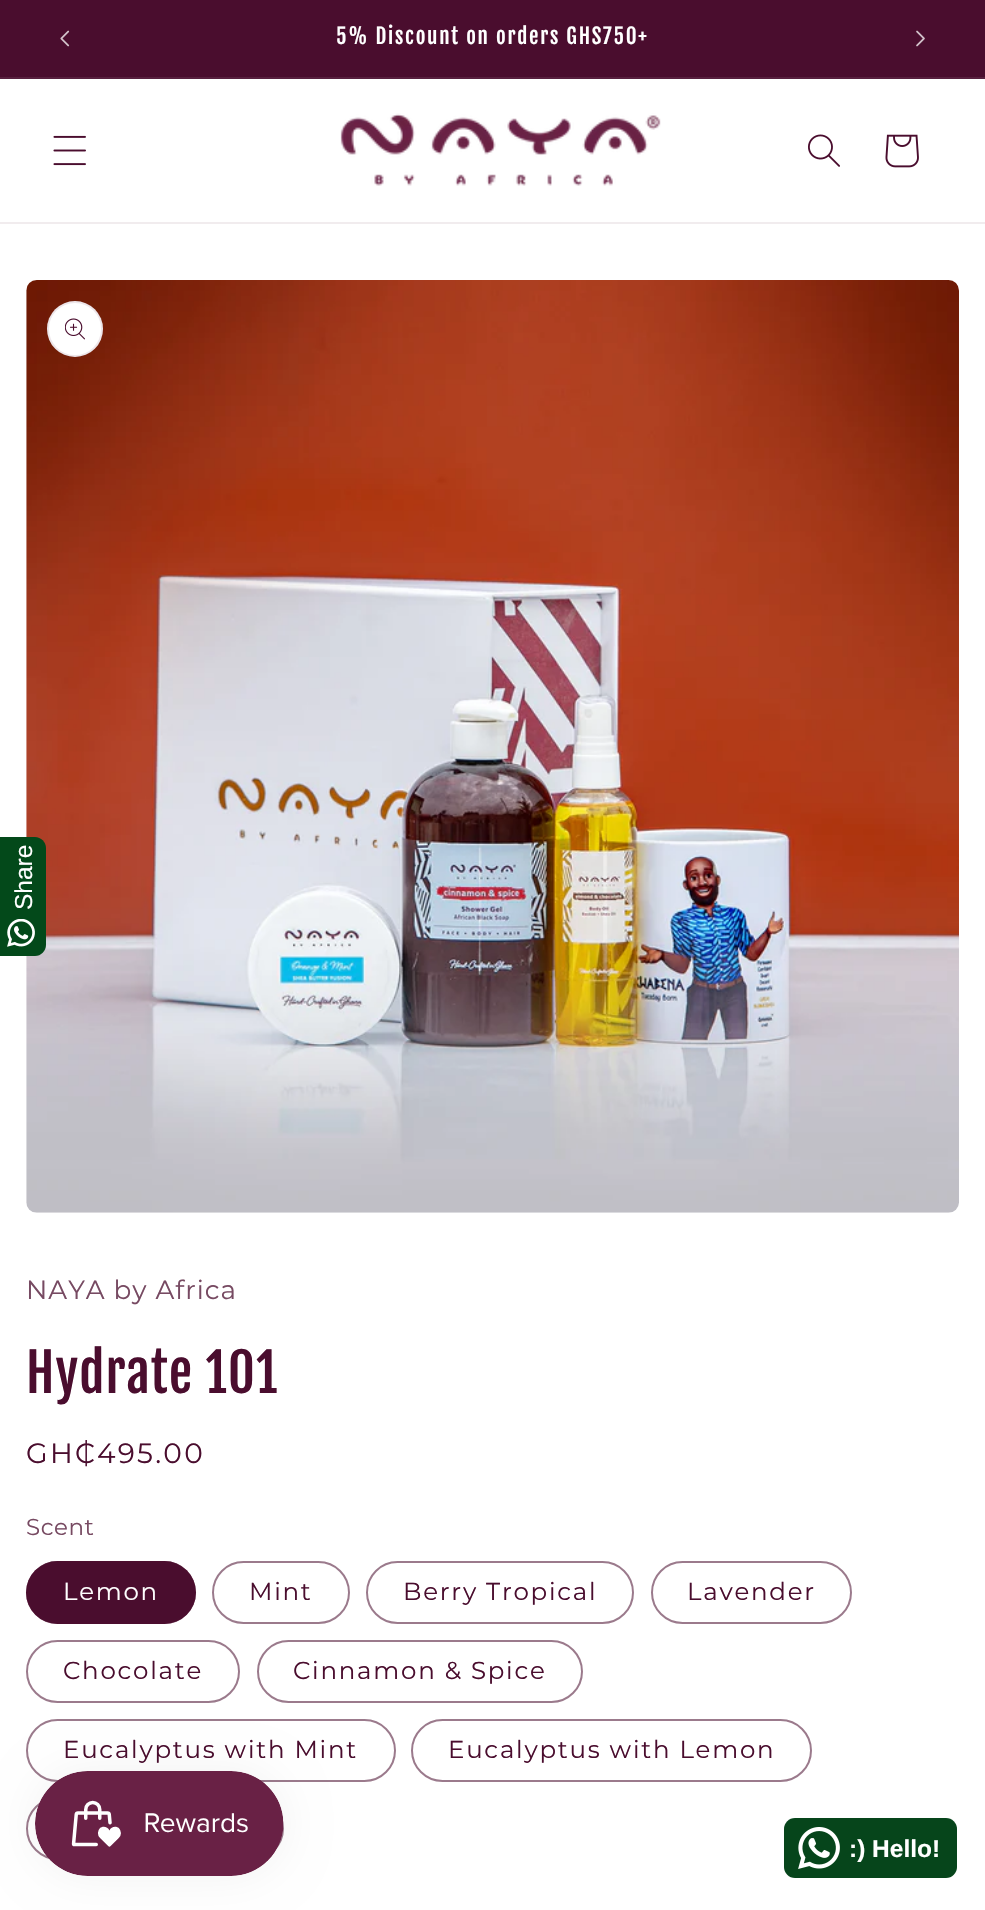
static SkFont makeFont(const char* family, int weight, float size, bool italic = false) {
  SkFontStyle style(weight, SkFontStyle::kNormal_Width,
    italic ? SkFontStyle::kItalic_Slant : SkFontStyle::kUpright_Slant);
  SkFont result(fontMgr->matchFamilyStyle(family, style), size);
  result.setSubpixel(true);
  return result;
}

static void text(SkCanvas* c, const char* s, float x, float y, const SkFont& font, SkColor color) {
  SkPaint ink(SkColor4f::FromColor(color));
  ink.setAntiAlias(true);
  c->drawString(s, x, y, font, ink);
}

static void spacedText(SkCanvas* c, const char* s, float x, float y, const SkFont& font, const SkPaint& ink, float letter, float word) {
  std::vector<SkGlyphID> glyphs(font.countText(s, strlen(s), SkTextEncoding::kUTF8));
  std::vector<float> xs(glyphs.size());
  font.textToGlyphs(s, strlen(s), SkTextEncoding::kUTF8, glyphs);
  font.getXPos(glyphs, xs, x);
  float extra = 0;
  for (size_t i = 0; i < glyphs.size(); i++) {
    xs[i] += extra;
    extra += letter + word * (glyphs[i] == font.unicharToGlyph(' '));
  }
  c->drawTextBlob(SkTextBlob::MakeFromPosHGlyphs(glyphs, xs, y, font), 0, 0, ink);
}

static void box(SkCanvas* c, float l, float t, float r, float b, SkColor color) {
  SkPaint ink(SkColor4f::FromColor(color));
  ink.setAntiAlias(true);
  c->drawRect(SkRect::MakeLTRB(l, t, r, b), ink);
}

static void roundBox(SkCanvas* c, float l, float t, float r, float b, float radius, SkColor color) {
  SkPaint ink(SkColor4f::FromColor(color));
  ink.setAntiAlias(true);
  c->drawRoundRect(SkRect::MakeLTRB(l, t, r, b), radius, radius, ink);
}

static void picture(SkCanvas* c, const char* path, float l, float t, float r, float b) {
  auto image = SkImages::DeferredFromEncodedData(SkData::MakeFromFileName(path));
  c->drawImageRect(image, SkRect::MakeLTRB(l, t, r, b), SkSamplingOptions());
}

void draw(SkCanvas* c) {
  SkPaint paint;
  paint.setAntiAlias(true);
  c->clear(0xff4a0d2e);
  box(c, 0, 77, 985, 79, 0xff58203f);
  picture(c, "img_01.png", 60, 30, 70, 47);
  SkFont face1 = makeFont("Fjalla One", 400, 21);
  paint.setColor(0xffffffff);
  spacedText(c, "5% Discount on orders GHS750+", 336, 44, face1, paint, 1.75f, 0);
  picture(c, "img_02.png", 916, 30, 925, 47);
  box(c, 0, 79, 985, 222, 0xffffffff);
  box(c, 0, 222, 985, 224, 0xfff1ecee);
  picture(c, "img_03.png", 53, 135, 86, 166);
  picture(c, "img_04.png", 340, 113, 661, 186);
  picture(c, "img_05.png", 808, 134, 840, 167);
  picture(c, "img_06.png", 885, 134, 919, 168);
  box(c, 0, 224, 985, 1910, 0xffffffff);
  picture(c, "img_08.png", 26, 280, 959, 1213);
  paint.setColor(0xff03491a);
  c->drawPath(SkPathBuilder().moveTo(0, 837).lineTo(35, 837).cubicTo(41, 837, 46, 842, 46, 848).lineTo(46, 945).cubicTo(46, 951, 41, 956, 35, 956).lineTo(0, 956).close().detach(), paint);
  SkFont face2 = makeFont("Liberation Sans", 400, 24.5f);
  c->save();
  c->rotate(-90, 32, 910);
  text(c, "Share", 32, 910, face2, 0xffffffff);
  c->restore();
  picture(c, "img_07.png", 7, 919, 35, 947);
  paint.setColor(0xffffffff);
  c->drawCircle(75, 329, 28, paint);
  paint.setStyle(SkPaint::kStroke_Style);
  paint.setStrokeWidth(2);
  paint.setColor(0x1a4a0d2e);
  c->drawCircle(75, 329, 27, paint);
  picture(c, "img_09.png", 65, 318, 85, 340);
  SkFont face3 = makeFont("Montserrat", 400, 26.25f);
  paint.setStyle(SkPaint::kFill_Style);
  paint.setColor(0xff774a62);
  spacedText(c, "NAYA by Africa", 26, 1299, face3, paint, 1, 0);
  SkFont face4 = makeFont("Fjalla One", 400, 52.5f);
  paint.setColor(0xff4a0d2e);
  spacedText(c, "Hydrate 101", 26, 1393, face4, paint, 1, 0);
  SkFont face5 = makeFont("Montserrat", 400, 28);
  spacedText(c, "GH₵495.00", 26, 1463, face5, paint, 2.25f, 0);
  SkFont face6 = makeFont("Montserrat", 400, 23);
  paint.setColor(0xff774a62);
  spacedText(c, "Scent", 26, 1535, face6, paint, 0.5f, 0);
  roundBox(c, 26, 1561, 196, 1624, 31.5f, 0xff4a0d2e);
  paint.setStyle(SkPaint::kStroke_Style);
  paint.setColor(0x8c4a0d2e);
  c->drawRoundRect(SkRect::MakeLTRB(27, 1562, 195, 1623), 30.5f, 30.5f, paint);
  SkFont face7 = makeFont("Montserrat", 400, 24.5f);
  paint.setStyle(SkPaint::kFill_Style);
  paint.setColor(0xffffffff);
  spacedText(c, "Lemon", 63, 1600, face7, paint, 1.75f, 0);
  paint.setStyle(SkPaint::kStroke_Style);
  paint.setColor(0xff9b7a8c);
  c->drawRoundRect(SkRect::MakeLTRB(213, 1562, 349, 1623), 30.5f, 30.5f, paint);
  paint.setStyle(SkPaint::kFill_Style);
  paint.setColor(0xff4a0d2e);
  spacedText(c, "Mint", 249, 1600, face7, paint, 1.75f, 0);
  paint.setStyle(SkPaint::kStroke_Style);
  paint.setColor(0xff9b7a8c);
  c->drawRoundRect(SkRect::MakeLTRB(367, 1562, 633, 1623), 30.5f, 30.5f, paint);
  paint.setStyle(SkPaint::kFill_Style);
  paint.setColor(0xff4a0d2e);
  spacedText(c, "Berry Tropical", 403, 1600, face7, paint, 1.75f, 0);
  paint.setStyle(SkPaint::kStroke_Style);
  paint.setColor(0xff9b7a8c);
  c->drawRoundRect(SkRect::MakeLTRB(652, 1562, 851, 1623), 30.5f, 30.5f, paint);
  paint.setStyle(SkPaint::kFill_Style);
  paint.setColor(0xff4a0d2e);
  spacedText(c, "Lavender", 687, 1600, face7, paint, 1.75f, 0);
  paint.setStyle(SkPaint::kStroke_Style);
  paint.setColor(0xff9b7a8c);
  c->drawRoundRect(SkRect::MakeLTRB(27, 1641, 239, 1702), 30.5f, 30.5f, paint);
  paint.setStyle(SkPaint::kFill_Style);
  paint.setColor(0xff4a0d2e);
  spacedText(c, "Chocolate", 63, 1679, face7, paint, 1.75f, 0);
  paint.setStyle(SkPaint::kStroke_Style);
  paint.setColor(0xff9b7a8c);
  c->drawRoundRect(SkRect::MakeLTRB(258, 1641, 582, 1702), 30.5f, 30.5f, paint);
  paint.setStyle(SkPaint::kFill_Style);
  paint.setColor(0xff4a0d2e);
  spacedText(c, "Cinnamon & Spice", 293, 1679, face7, paint, 1.75f, 0);
  paint.setStyle(SkPaint::kStroke_Style);
  paint.setColor(0xff9b7a8c);
  c->drawRoundRect(SkRect::MakeLTRB(27, 1720, 395, 1781), 30.5f, 30.5f, paint);
  paint.setStyle(SkPaint::kFill_Style);
  paint.setColor(0xff4a0d2e);
  spacedText(c, "Eucalyptus with Mint", 63, 1758, face7, paint, 1.75f, 0);
  paint.setStyle(SkPaint::kStroke_Style);
  paint.setColor(0xff9b7a8c);
  c->drawRoundRect(SkRect::MakeLTRB(412, 1720, 811, 1781), 30.5f, 30.5f, paint);
  paint.setStyle(SkPaint::kFill_Style);
  paint.setColor(0xff4a0d2e);
  spacedText(c, "Eucalyptus with Lemon", 448, 1758, face7, paint, 1.75f, 0);
  paint.setStyle(SkPaint::kStroke_Style);
  paint.setColor(0xff9b7a8c);
  c->drawRoundRect(SkRect::MakeLTRB(27, 1798, 283, 1859), 30.5f, 30.5f, paint);
  paint.setStyle(SkPaint::kFill_Style);
  paint.setColor(0x0d000000);
  paint.setMaskFilter(SkMaskFilter::MakeBlur(kNormal_SkBlurStyle, 22));
  c->drawRoundRect(SkRect::MakeLTRB(35, 1771, 284, 1876), 52.5f, 52.5f, paint);
  paint.setMaskFilter(nullptr);
  picture(c, "img_10.png", 35, 1771, 284, 1876);
  roundBox(c, 784, 1818, 957, 1878, 11, 0xff06451b);
  picture(c, "img_11.png", 798, 1827, 840, 1869);
  SkFont face8 = makeFont("Liberation Sans", 700, 24.5f);
  text(c, ":) Hello!", 849, 1857, face8, 0xffffffff);
}
